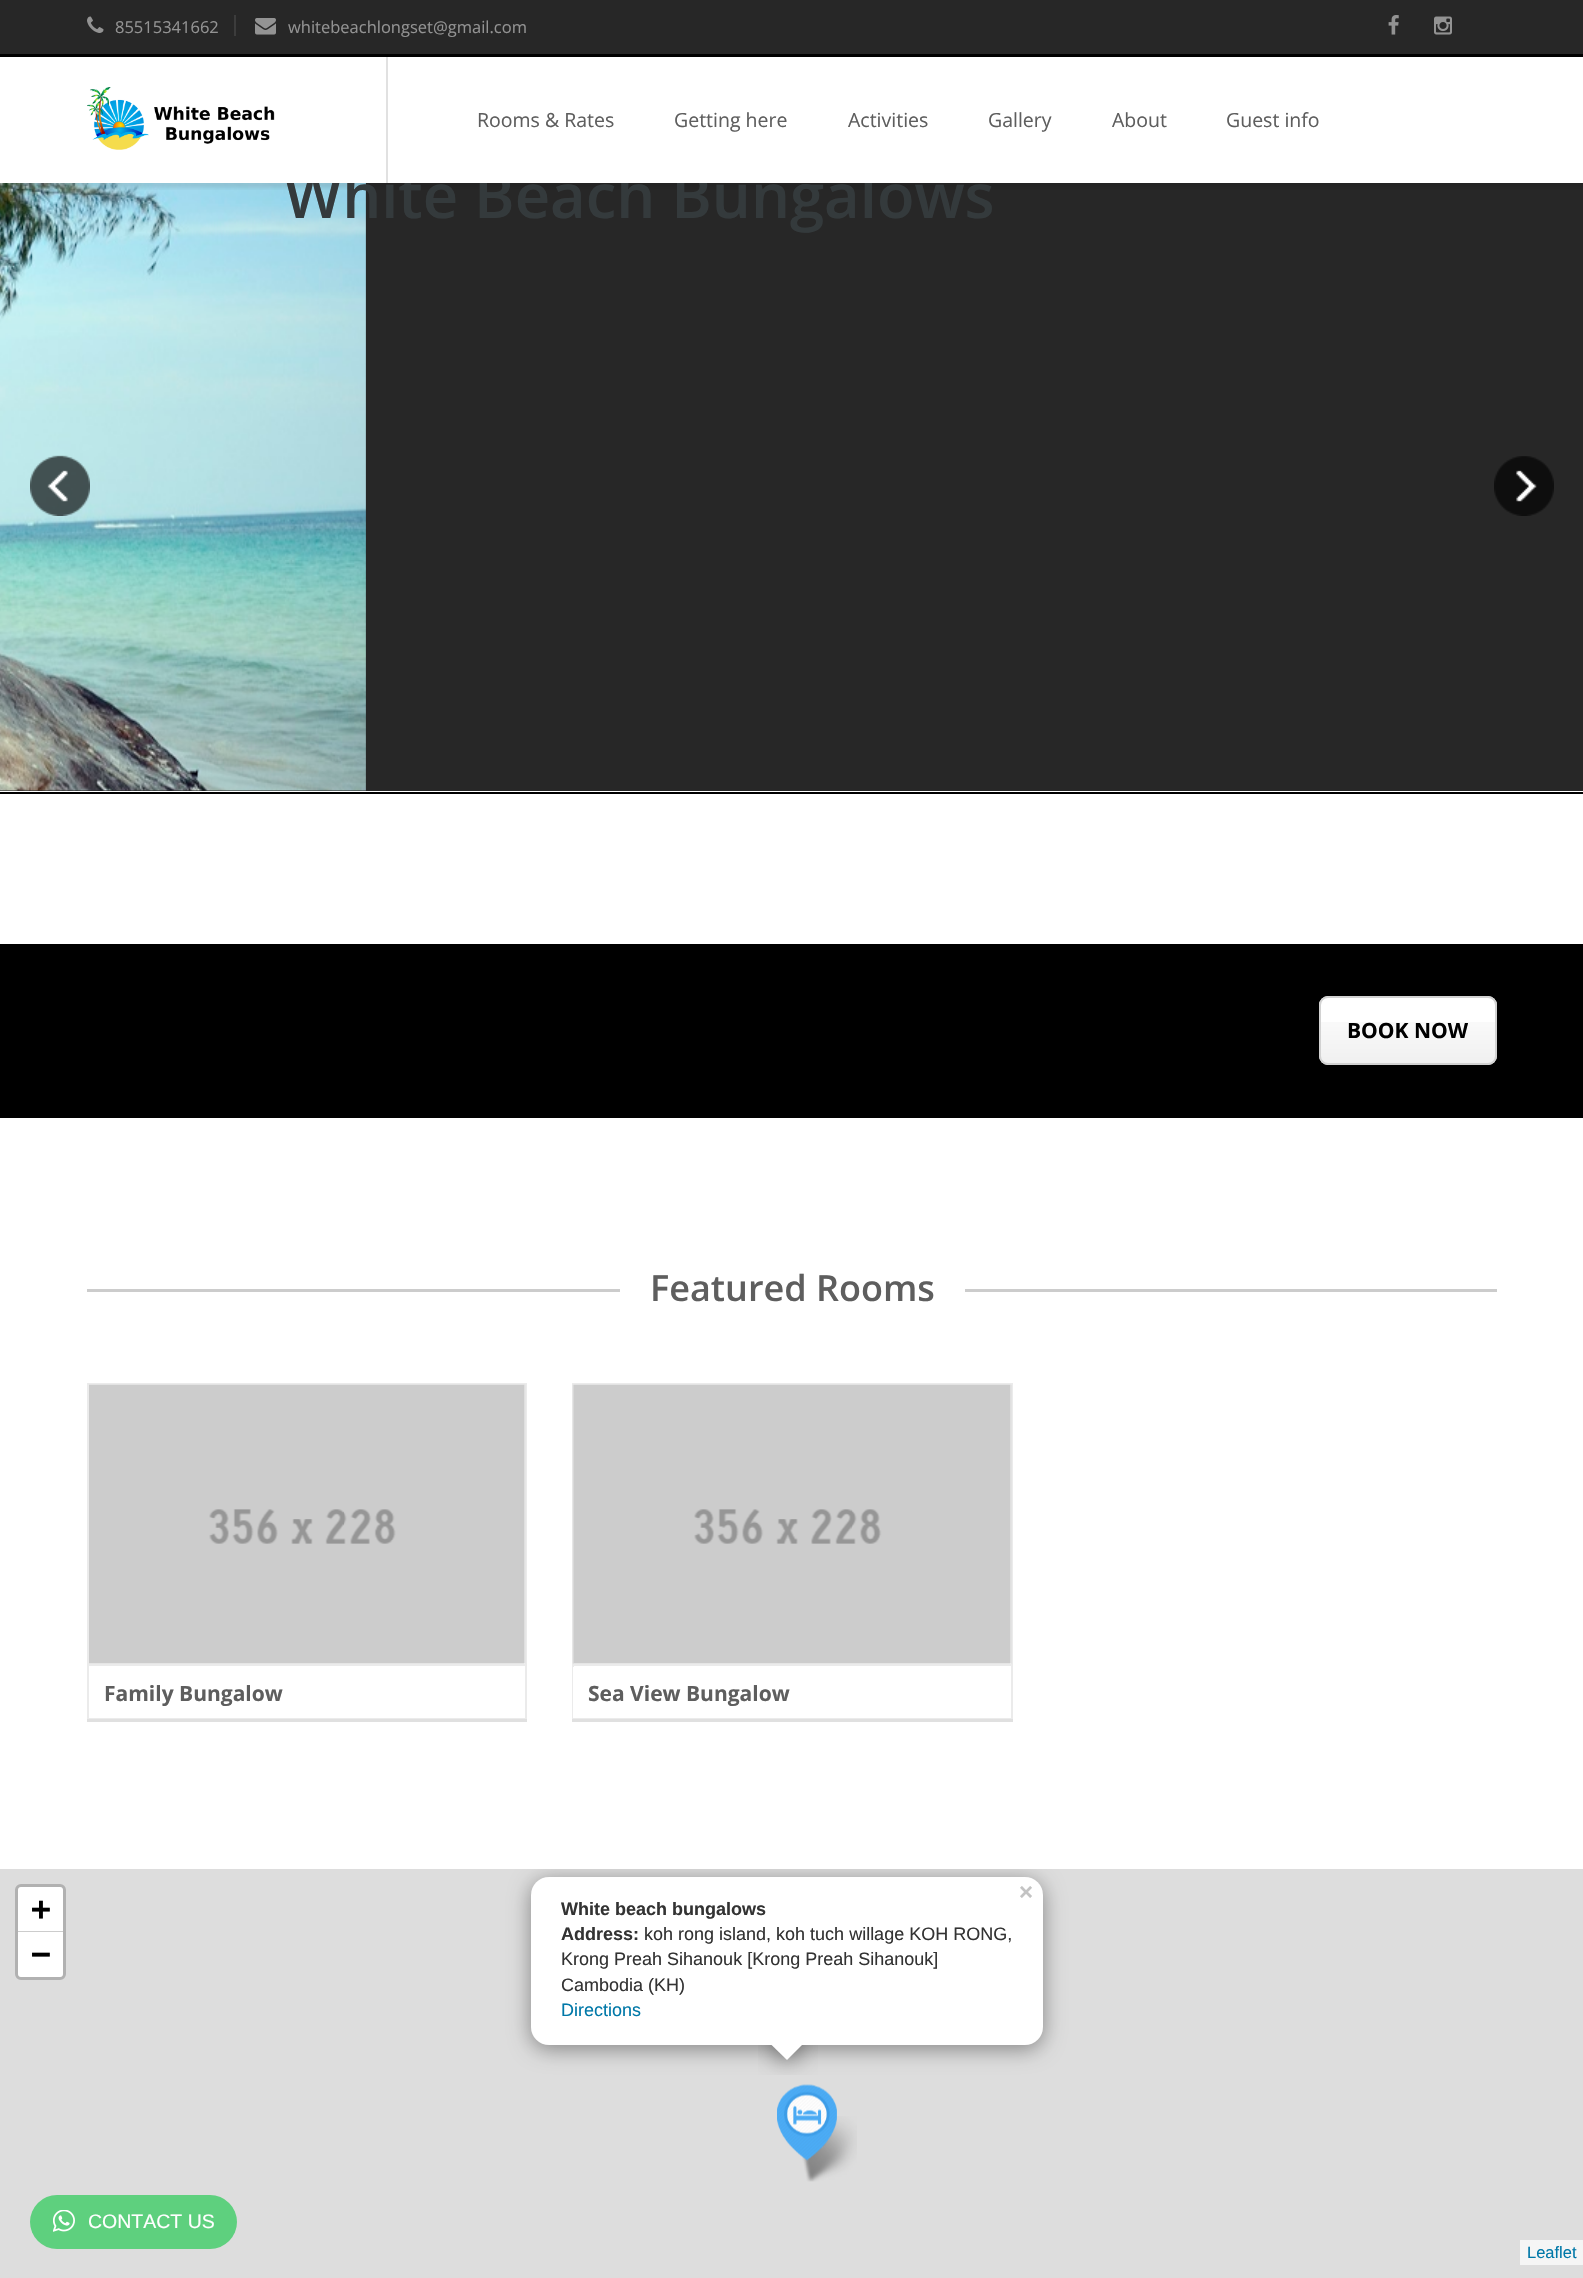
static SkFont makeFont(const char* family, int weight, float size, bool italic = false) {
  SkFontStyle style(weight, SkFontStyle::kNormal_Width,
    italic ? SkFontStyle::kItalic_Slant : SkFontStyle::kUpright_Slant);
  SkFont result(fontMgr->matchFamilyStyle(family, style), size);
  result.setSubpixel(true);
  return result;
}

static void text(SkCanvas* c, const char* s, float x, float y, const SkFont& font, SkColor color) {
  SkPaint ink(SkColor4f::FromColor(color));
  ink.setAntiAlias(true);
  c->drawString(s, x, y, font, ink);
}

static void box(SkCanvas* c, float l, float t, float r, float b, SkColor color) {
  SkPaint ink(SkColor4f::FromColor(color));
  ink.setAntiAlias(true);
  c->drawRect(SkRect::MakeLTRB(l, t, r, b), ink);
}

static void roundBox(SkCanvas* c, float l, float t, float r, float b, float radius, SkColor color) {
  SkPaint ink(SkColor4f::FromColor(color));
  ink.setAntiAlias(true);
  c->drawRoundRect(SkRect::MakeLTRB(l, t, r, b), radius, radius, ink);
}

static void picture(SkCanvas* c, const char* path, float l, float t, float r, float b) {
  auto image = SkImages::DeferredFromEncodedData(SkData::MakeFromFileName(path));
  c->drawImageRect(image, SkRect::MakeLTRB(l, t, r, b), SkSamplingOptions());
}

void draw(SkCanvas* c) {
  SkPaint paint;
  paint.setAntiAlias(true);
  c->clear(0xffffffff);
  box(c, 0, 0, 1583, 54, 0xff272727);
  box(c, 234, 15, 236, 36, 0xff3c3c3c);
  picture(c, "img_01.png", 87, 16, 104, 33);
  SkFont face1 = makeFont("Open Sans", 400, 16.5f);
  text(c, "85515341662", 115, 33, face1, 0xff939393);
  picture(c, "img_02.png", 255, 18, 276, 35);
  text(c, "whitebeachlongset@gmail.com", 288, 33, face1, 0xff939393);
  picture(c, "img_03.png", 1388, 15, 1399, 35);
  picture(c, "img_04.png", 1434, 16, 1452, 35);
  box(c, 0, 54, 1583, 57, 0xff000000);
  box(c, 0, 183, 1583, 791, 0xff272727);
  picture(c, "img_06.png", 0, 183, 366, 791);
  c->save();
  c->clipRect(SkRect::MakeLTRB(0, 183, 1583, 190));
  paint.setColor(0x1a000000);
  paint.setMaskFilter(SkMaskFilter::MakeBlur(kNormal_SkBlurStyle, 2));
  c->drawRect(SkRect::MakeLTRB(0, 62, 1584, 188), paint);
  paint.setMaskFilter(nullptr);
  c->restore();
  box(c, 386, 57, 388, 183, 0xffe1e1e1);
  picture(c, "img_05.png", 87, 87, 275, 150);
  SkFont face2 = makeFont("Open Sans", 400, 19.5f);
  text(c, "Rooms & Rates", 477, 127, face2, 0xff5e5e5e);
  text(c, "Getting here", 674, 127, face2, 0xff5e5e5e);
  text(c, "Activities", 848, 127, face2, 0xff5e5e5e);
  text(c, "Gallery", 988, 127, face2, 0xff5e5e5e);
  text(c, "About", 1112, 127, face2, 0xff5e5e5e);
  text(c, "Guest info", 1226, 127, face2, 0xff5e5e5e);
  box(c, 0, 792, 1583, 794, 0xff000000);
  c->save();
  c->clipRect(SkRect::MakeLTRB(0, 183, 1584, 791));
  SkFont face3 = makeFont("Open Sans", 600, 61.5f);
  text(c, "White Beach Bungalows", 284, 218, face3, 0xff343a3c);
  c->restore();
  picture(c, "img_07.png", 30, 455, 90, 516);
  picture(c, "img_08.png", 1494, 456, 1554, 516);
  box(c, 0, 944, 1583, 1118, 0xff000000);
  roundBox(c, 1319, 996, 1497, 1065, 9, 0xffffffff);
  {
    const SkColor colors[] = {0x00000000, 0x0f000000};
    const float stops[] = {0, 1};
    const SkPoint ends[] = {{1408, 998}, {1408, 1064}};
    paint.setShader(SkGradientShader::MakeLinear(ends, colors, stops, 2, SkTileMode::kClamp));
    paint.setAlpha(255);
  }
  c->drawRect(SkRect::MakeLTRB(1319, 1022, 1497, 1064), paint);
  paint.setStyle(SkPaint::kStroke_Style);
  paint.setStrokeWidth(2);
  paint.setShader(nullptr);
  paint.setColor(0xffd2d2d2);
  c->drawRoundRect(SkRect::MakeLTRB(1320, 997, 1496, 1064), 8, 8, paint);
  SkFont face4 = makeFont("Open Sans", 700, 21);
  text(c, "BOOK NOW", 1347, 1038, face4, 0xff000000);
  box(c, 87, 1289, 1497, 1292, 0xffcccccc);
  box(c, 620, 1289, 965, 1292, 0xffffffff);
  SkFont face5 = makeFont("Open Sans", 600, 36);
  text(c, "Featured Rooms", 650, 1301, face5, 0xff5e5e5e);
  paint.setStyle(SkPaint::kFill_Style);
  paint.setColor(0xffe0e0e0);
  c->drawPath(SkPathBuilder().moveTo(87, 1719).lineTo(87, 1722).lineTo(527, 1722).lineTo(527, 1386).lineTo(526, 1386).lineTo(526, 1719).close().detach(), paint);
  paint.setStyle(SkPaint::kStroke_Style);
  paint.setColor(0xffebebeb);
  c->drawRect(SkRect::MakeLTRB(88, 1384, 526, 1718), paint);
  box(c, 89, 1664, 525, 1666, 0xffebebeb);
  picture(c, "img_09.png", 89, 1384, 526, 1664);
  box(c, 89, 1717, 525, 1718, 0xffffffff);
  text(c, "Family Bungalow", 104, 1701, face4, 0xff5e5e5e);
  paint.setStyle(SkPaint::kFill_Style);
  paint.setColor(0xffe0e0e0);
  c->drawPath(SkPathBuilder().moveTo(572, 1719).lineTo(572, 1722).lineTo(1013, 1722).lineTo(1013, 1386).lineTo(1012, 1386).lineTo(1012, 1719).close().detach(), paint);
  paint.setStyle(SkPaint::kStroke_Style);
  paint.setColor(0xffebebeb);
  c->drawRect(SkRect::MakeLTRB(573, 1384, 1012, 1718), paint);
  box(c, 573, 1664, 1011, 1666, 0xffebebeb);
  picture(c, "img_10.png", 572, 1384, 1012, 1664);
  box(c, 573, 1667, 1011, 1718, 0xffffffff);
  text(c, "Sea View Bungalow", 588, 1701, face4, 0xff5e5e5e);
  box(c, 0, 1869, 1583, 2278, 0xffdddddd);
  c->save();
  c->clipRect(SkRect::MakeLTRB(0, 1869, 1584, 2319));
  paint.setStyle(SkPaint::kFill_Style);
  paint.setColor(0x66000000);
  paint.setMaskFilter(SkMaskFilter::MakeBlur(kNormal_SkBlurStyle, 10.5f));
  c->drawRoundRect(SkRect::MakeLTRB(531, 1881, 1043, 2049), 18, 18, paint);
  paint.setMaskFilter(nullptr);
  c->restore();
  roundBox(c, 531, 1877, 1043, 2045, 18, 0xffffffff);
  SkFont face6 = makeFont("Liberation Sans", 700, 24);
  text(c, "×", 1019, 1900, face6, 0xffc3c3c3);
  SkFont face7 = makeFont("Liberation Sans", 700, 18);
  text(c, "White beach bungalows", 561, 1915, face7, 0xff333333);
  text(c, "Address:", 561, 1940, face7, 0xff333333);
  SkFont face8 = makeFont("Liberation Sans", 400, 18);
  text(c, "koh rong island, koh tuch willage KOH RONG,", 644, 1940, face8, 0xff333333);
  text(c, "Krong Preah Sihanouk [Krong Preah Sihanouk]", 561, 1965, face8, 0xff333333);
  text(c, "Cambodia (KH)", 561, 1991, face8, 0xff333333);
  text(c, "Directions", 561, 2016, face8, 0xff0078a8);
  picture(c, "img_12.png", 802, 2116, 857, 2182);
  picture(c, "img_11.png", 777, 2084, 837, 2161);
  c->save();
  c->clipRect(SkRect::MakeLTRB(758, 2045, 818, 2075));
  paint.setMaskFilter(SkMaskFilter::MakeBlur(kNormal_SkBlurStyle, 10.5f));
  c->drawRect(SkRect::MakeLTRB(774, 2034, 800, 2060), paint);
  paint.setMaskFilter(nullptr);
  c->restore();
  c->save();
  c->clipRect(SkRect::MakeLTRB(758, 2045, 818, 2075));
  paint.setColor(0xffffffff);
  c->drawPath(SkPathBuilder().moveTo(787, 2024).lineTo(805, 2042).lineTo(787, 2060).lineTo(768.5f, 2042).close().detach(), paint);
  c->restore();
  paint.setStyle(SkPaint::kStroke_Style);
  paint.setStrokeWidth(3);
  paint.setColor(0xffb1b1b1);
  c->drawRoundRect(SkRect::MakeLTRB(16.5f, 1885.5f, 64.5f, 1978.5f), 4.5f, 4.5f, paint);
  paint.setStyle(SkPaint::kFill_Style);
  paint.setColor(0xffffffff);
  c->drawPath(SkPathBuilder().moveTo(21, 1887).lineTo(60, 1887).cubicTo(61.5f, 1887, 63, 1888.5f, 63, 1890).lineTo(63, 1932).lineTo(18, 1932).lineTo(18, 1890).cubicTo(18, 1888.5f, 19.5f, 1887, 21, 1887).close().detach(), paint);
  box(c, 18, 1931, 63, 1932, 0xffcccccc);
  SkFont face9 = makeFont("DejaVu Sans Mono", 700, 33);
  text(c, "+", 31, 1920, face9, 0xff000000);
  c->drawPath(SkPathBuilder().moveTo(18, 1932).lineTo(63, 1932).lineTo(63, 1974).cubicTo(63, 1975.5f, 61.5f, 1977, 60, 1977).lineTo(21, 1977).cubicTo(19.5f, 1977, 18, 1975.5f, 18, 1974).close().detach(), paint);
  text(c, "−", 31, 1965, face9, 0xff000000);
  box(c, 1520, 2240, 1583, 2265, 0xfff5f5f5);
  SkFont face10 = makeFont("Liberation Sans", 400, 16.5f);
  text(c, "Leaflet", 1527, 2258, face10, 0xff0078a8);
  roundBox(c, 30, 2195, 237, 2249, 27, 0xff5ed07e);
  picture(c, "img_13.png", 53, 2210, 75, 2232);
  SkFont face11 = makeFont("Liberation Sans", 400, 19.5f);
  text(c, "CONTACT US", 88, 2228, face11, 0xffffffff);
}
